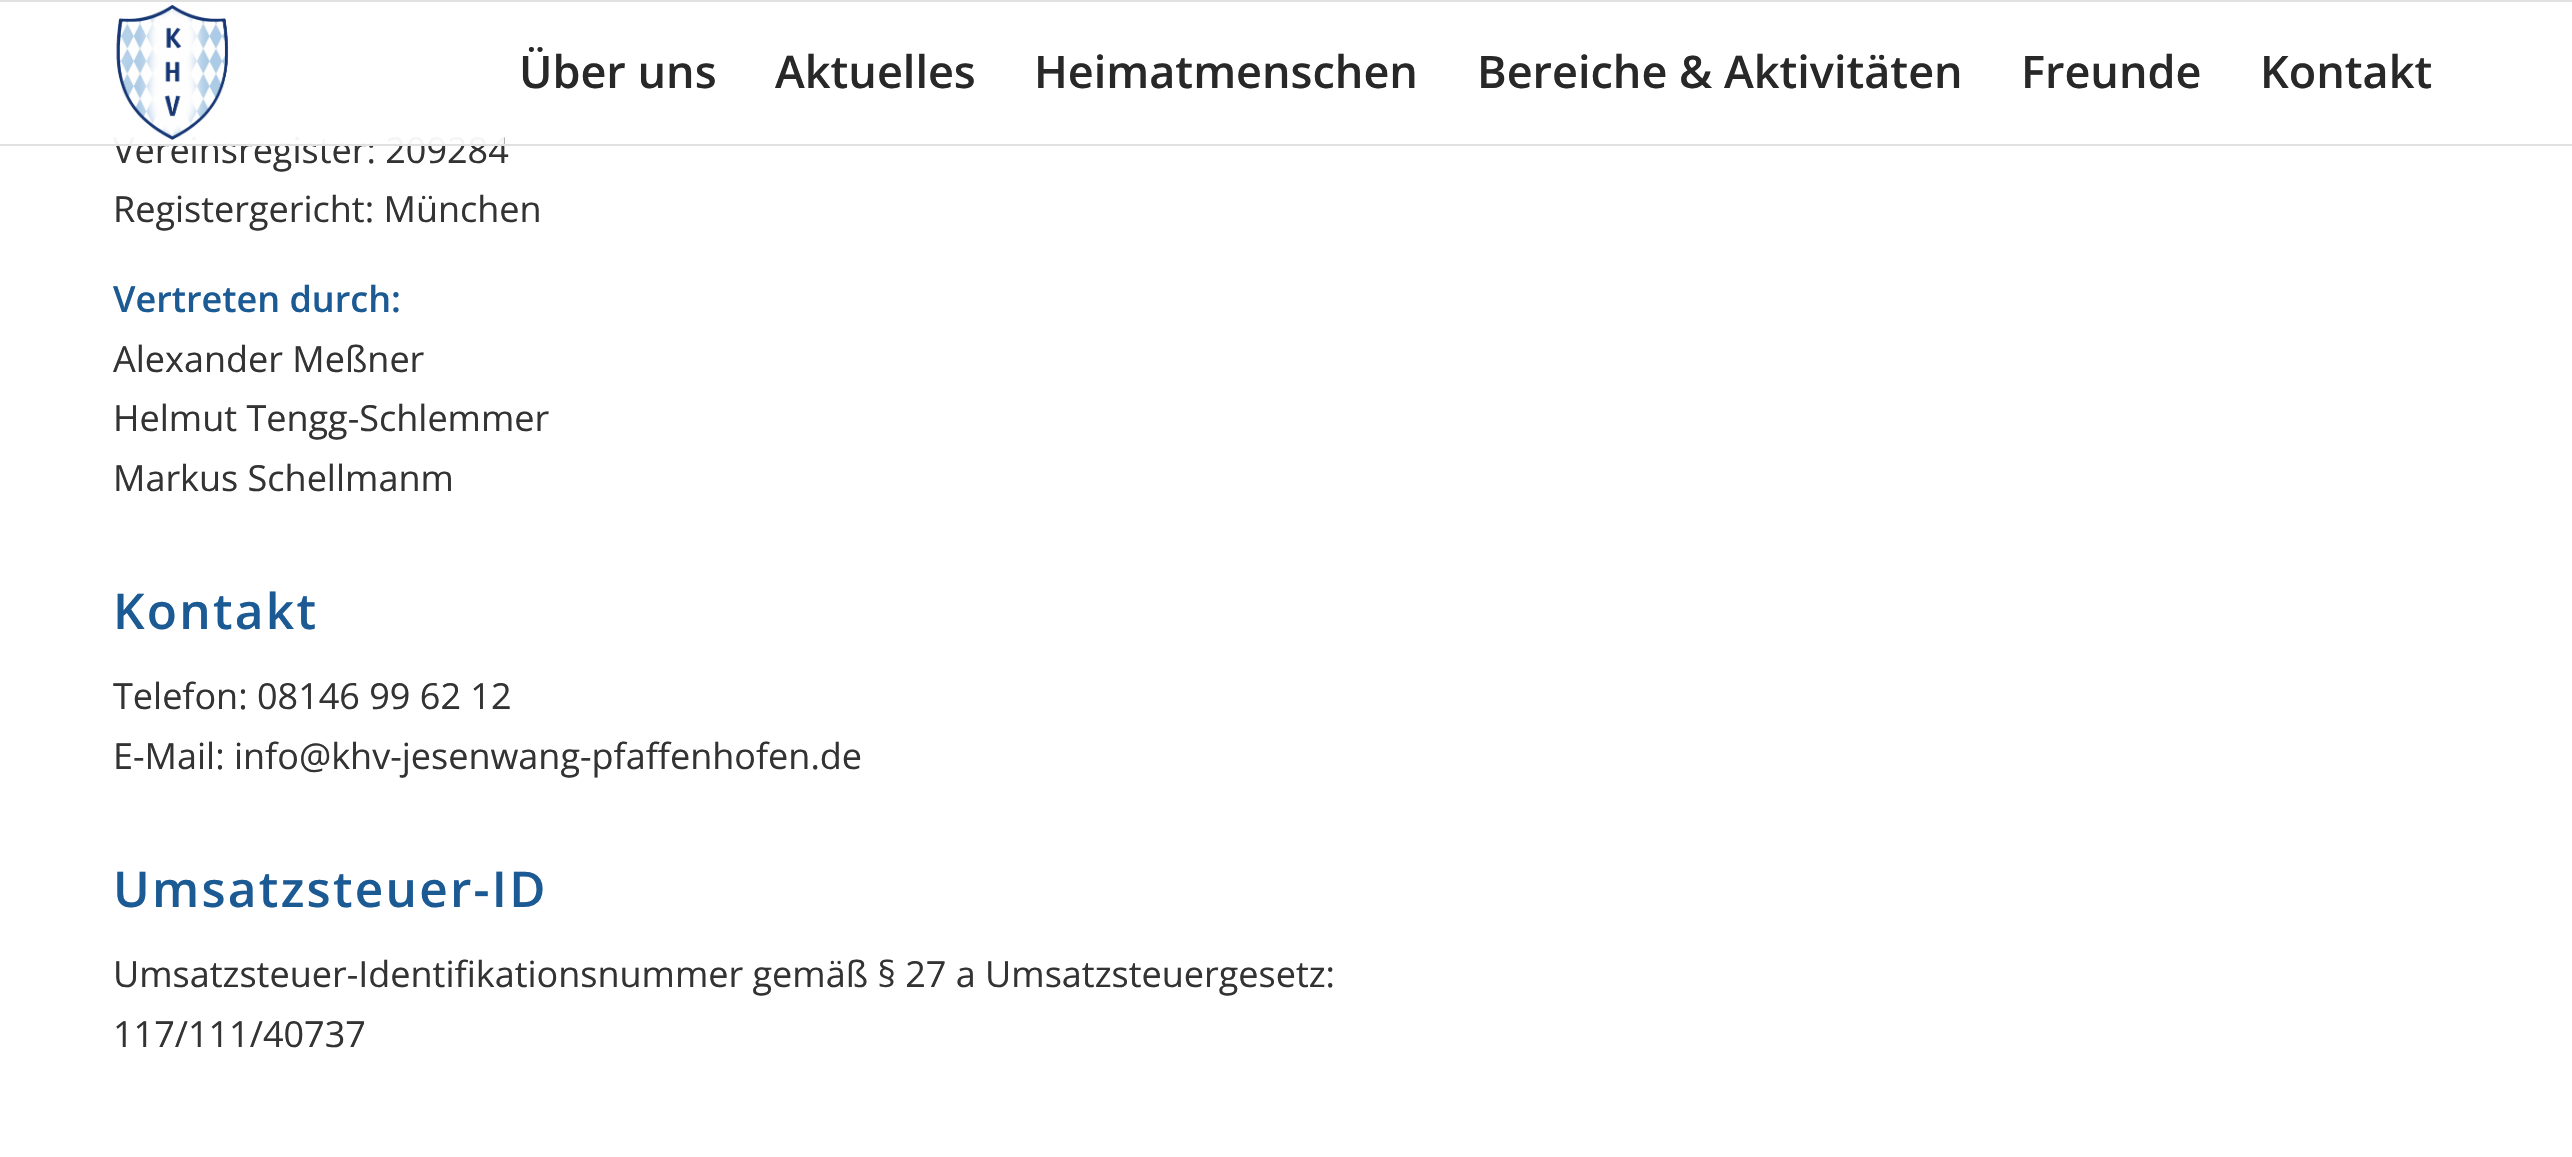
static SkFont makeFont(const char* family, int weight, float size, bool italic = false) {
  SkFontStyle style(weight, SkFontStyle::kNormal_Width,
    italic ? SkFontStyle::kItalic_Slant : SkFontStyle::kUpright_Slant);
  SkFont result(fontMgr->matchFamilyStyle(family, style), size);
  result.setSubpixel(true);
  return result;
}

static void text(SkCanvas* c, const char* s, float x, float y, const SkFont& font, SkColor color) {
  SkPaint ink(SkColor4f::FromColor(color));
  ink.setAntiAlias(true);
  c->drawString(s, x, y, font, ink);
}

static void spacedText(SkCanvas* c, const char* s, float x, float y, const SkFont& font, const SkPaint& ink, float letter, float word) {
  std::vector<SkGlyphID> glyphs(font.countText(s, strlen(s), SkTextEncoding::kUTF8));
  std::vector<float> xs(glyphs.size());
  font.textToGlyphs(s, strlen(s), SkTextEncoding::kUTF8, glyphs);
  font.getXPos(glyphs, xs, x);
  float extra = 0;
  for (size_t i = 0; i < glyphs.size(); i++) {
    xs[i] += extra;
    extra += letter + word * (glyphs[i] == font.unicharToGlyph(' '));
  }
  c->drawTextBlob(SkTextBlob::MakeFromPosHGlyphs(glyphs, xs, y, font), 0, 0, ink);
}

static void box(SkCanvas* c, float l, float t, float r, float b, SkColor color) {
  SkPaint ink(SkColor4f::FromColor(color));
  ink.setAntiAlias(true);
  c->drawRect(SkRect::MakeLTRB(l, t, r, b), ink);
}

static void picture(SkCanvas* c, const char* path, float l, float t, float r, float b) {
  auto image = SkImages::DeferredFromEncodedData(SkData::MakeFromFileName(path));
  c->drawImageRect(image, SkRect::MakeLTRB(l, t, r, b), SkSamplingOptions());
}

void draw(SkCanvas* c) {
  SkPaint paint;
  paint.setAntiAlias(true);
  c->clear(0xffffffff);
  box(c, 0, 0, 2572, 2, 0xffe1e1e1);
  SkFont face1 = makeFont("Open Sans", 400, 36);
  text(c, "Vereinsregister: 209284", 113, 163, face1, 0xff333333);
  box(c, 0, 144, 2572, 146, 0xffe1e1e1);
  box(c, 112, 136, 504, 144, 0xf2ffffff);
  picture(c, "img_01.png", 116, 5, 229, 140);
  SkFont face2 = makeFont("Open Sans", 600, 45);
  text(c, "Über uns", 519, 88, face2, 0xff292829);
  text(c, "Aktuelles", 775, 88, face2, 0xff292829);
  text(c, "Heimatmenschen", 1034, 88, face2, 0xff292829);
  text(c, "Bereiche & Aktivitäten", 1477, 88, face2, 0xff292829);
  text(c, "Freunde", 2021, 88, face2, 0xff292829);
  text(c, "Kontakt", 2260, 88, face2, 0xff292829);
  text(c, "Registergericht: München", 113, 222, face1, 0xff333333);
  SkFont face3 = makeFont("Open Sans", 600, 36);
  text(c, "Vertreten durch:", 113, 312, face3, 0xff1c5a94);
  text(c, "Alexander Meßner", 113, 372, face1, 0xff333333);
  text(c, "Helmut Tengg-Schlemmer", 113, 431, face1, 0xff333333);
  text(c, "Markus Schellmanm", 113, 491, face1, 0xff333333);
  SkFont face4 = makeFont("Open Sans", 600, 49.5f);
  paint.setColor(0xff1c5a94);
  spacedText(c, "Kontakt", 113, 629, face4, paint, 2.25f, 0);
  text(c, "Telefon: 08146 99 62 12", 113, 709, face1, 0xff333333);
  text(c, "E-Mail: info@khv-jesenwang-pfaffenhofen.de", 113, 769, face1, 0xff333333);
  spacedText(c, "Umsatzsteuer-ID", 113, 907, face4, paint, 2.25f, 0);
  text(c, "Umsatzsteuer-Identifikationsnummer gemäß § 27 a Umsatzsteuergesetz:", 113, 987, face1, 0xff333333);
  text(c, "117/111/40737", 113, 1047, face1, 0xff333333);
}
